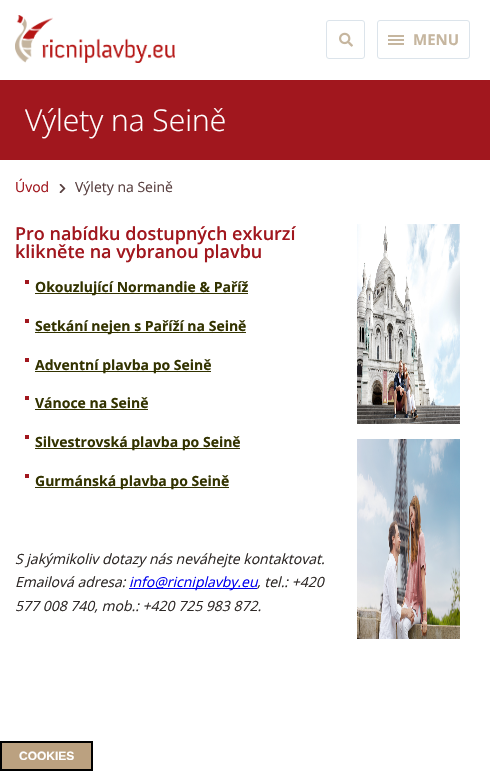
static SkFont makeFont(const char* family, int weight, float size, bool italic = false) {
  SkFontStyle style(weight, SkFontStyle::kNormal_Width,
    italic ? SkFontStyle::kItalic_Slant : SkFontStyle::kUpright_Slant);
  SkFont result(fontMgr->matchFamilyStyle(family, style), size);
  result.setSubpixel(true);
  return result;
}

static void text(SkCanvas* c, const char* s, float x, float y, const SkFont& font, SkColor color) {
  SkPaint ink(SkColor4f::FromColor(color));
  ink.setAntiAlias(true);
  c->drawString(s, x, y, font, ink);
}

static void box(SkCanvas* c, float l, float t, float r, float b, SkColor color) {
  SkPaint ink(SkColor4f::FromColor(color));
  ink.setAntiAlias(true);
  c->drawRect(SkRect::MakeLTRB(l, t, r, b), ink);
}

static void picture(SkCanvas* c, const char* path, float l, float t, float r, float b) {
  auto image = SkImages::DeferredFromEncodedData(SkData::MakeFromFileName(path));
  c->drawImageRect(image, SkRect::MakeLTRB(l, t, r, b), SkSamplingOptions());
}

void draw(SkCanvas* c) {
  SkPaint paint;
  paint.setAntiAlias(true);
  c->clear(0xffffffff);
  picture(c, "img_01.png", 15, 15, 175, 63);
  paint.setStyle(SkPaint::kStroke_Style);
  paint.setStrokeWidth(1);
  paint.setColor(0xffdce4eb);
  c->drawRoundRect(SkRect::MakeLTRB(326.5f, 20.5f, 364.5f, 58.5f), 2.5f, 2.5f, paint);
  picture(c, "img_02.png", 339, 32, 353, 47);
  c->drawRoundRect(SkRect::MakeLTRB(377.5f, 20.5f, 469.5f, 58.5f), 2.5f, 2.5f, paint);
  box(c, 388, 43, 404, 45, 0xffc6b69f);
  box(c, 388, 35, 404, 37, 0xffc6b69f);
  box(c, 388, 39, 404, 41, 0xffc6b69f);
  SkFont face1 = makeFont("Open Sans", 700, 15);
  text(c, "MENU", 413, 45, face1, 0xffc6b69f);
  box(c, 0, 80, 490, 160, 0xffa1171e);
  SkFont face2 = makeFont("Open Sans", 300, 30);
  text(c, "Výlety na Seině", 25, 131, face2, 0xffffffff);
  SkFont face3 = makeFont("Open Sans", 400, 14);
  text(c, "Úvod", 15, 192, face3, 0xffa1171e);
  picture(c, "img_03.png", 59, 184, 66, 193);
  text(c, "Výlety na Seině", 75, 192, face3, 0xff594040);
  SkFont face4 = makeFont("Open Sans", 600, 18);
  text(c, "Pro nabídku dostupných exkurzí", 15, 240, face4, 0xffa1171e);
  text(c, "klikněte na vybranou plavbu", 15, 258, face4, 0xffa1171e);
  box(c, 25, 280, 29, 284, 0xffa1171e);
  box(c, 35, 293, 248, 294, 0xff333300);
  SkFont face5 = makeFont("Open Sans", 700, 14);
  text(c, "Okouzlující Normandie & Paříž", 35, 292, face5, 0xff333300);
  box(c, 25, 319, 29, 323, 0xffa1171e);
  box(c, 35, 332, 246, 333, 0xff333300);
  text(c, "Setkání nejen s Paříží na Seině", 35, 331, face5, 0xff333300);
  box(c, 25, 358, 29, 362, 0xffa1171e);
  box(c, 35, 371, 211, 372, 0xff333300);
  text(c, "Adventní plavba po Seině", 35, 370, face5, 0xff333300);
  box(c, 25, 396, 29, 400, 0xffa1171e);
  text(c, "Vánoce na Seině", 35, 408, face5, 0xff333300);
  box(c, 35, 409, 148, 410, 0xff333300);
  box(c, 25, 435, 29, 439, 0xffa1171e);
  box(c, 35, 448, 240, 449, 0xff333300);
  text(c, "Silvestrovská plavba po Seině", 35, 447, face5, 0xff333300);
  box(c, 25, 474, 29, 478, 0xffa1171e);
  box(c, 35, 487, 229, 488, 0xff333300);
  text(c, "Gurmánská plavba po Seině", 35, 486, face5, 0xff333300);
  SkFont face6 = makeFont("Open Sans", 400, 14, true);
  text(c, "S jakýmikoliv dotazy nás neváhejte kontaktovat.", 15, 564, face6, 0xff2d2826);
  text(c, "Emailová adresa:", 15, 587, face6, 0xff2d2826);
  box(c, 129, 588, 257, 589, 0xff0000ee);
  text(c, "info@ricniplavby.eu", 129, 587, face6, 0xff0000ee);
  text(c, ", tel.: +420", 257, 587, face6, 0xff2d2826);
  text(c, "577 008 740, mob.: +420 725 983 872.", 15, 611, face6, 0xff2d2826);
  picture(c, "img_04.png", 357, 224, 460, 424);
  picture(c, "img_05.png", 357, 439, 460, 639);
  paint.setStyle(SkPaint::kFill_Style);
  paint.setColor(0xffbba180);
  c->drawRect(SkRect::MakeLTRB(1, 742, 92, 770), paint);
  paint.setStyle(SkPaint::kStroke_Style);
  paint.setStrokeWidth(2);
  paint.setColor(0xff000000);
  c->drawRect(SkRect::MakeLTRB(1, 742, 92, 770), paint);
  SkFont face7 = makeFont("Liberation Sans", 700, 12);
  text(c, "COOKIES", 19, 760, face7, 0xffffffff);
}
